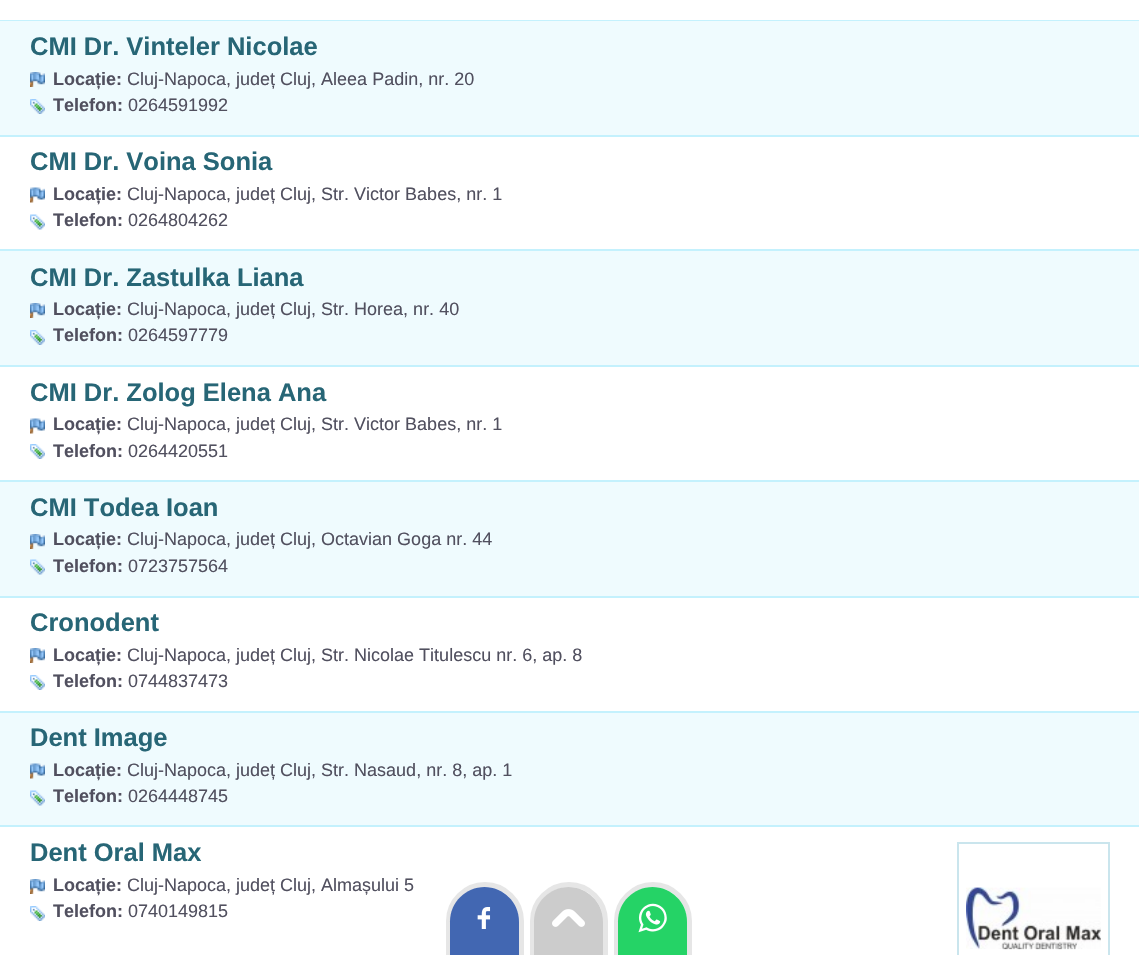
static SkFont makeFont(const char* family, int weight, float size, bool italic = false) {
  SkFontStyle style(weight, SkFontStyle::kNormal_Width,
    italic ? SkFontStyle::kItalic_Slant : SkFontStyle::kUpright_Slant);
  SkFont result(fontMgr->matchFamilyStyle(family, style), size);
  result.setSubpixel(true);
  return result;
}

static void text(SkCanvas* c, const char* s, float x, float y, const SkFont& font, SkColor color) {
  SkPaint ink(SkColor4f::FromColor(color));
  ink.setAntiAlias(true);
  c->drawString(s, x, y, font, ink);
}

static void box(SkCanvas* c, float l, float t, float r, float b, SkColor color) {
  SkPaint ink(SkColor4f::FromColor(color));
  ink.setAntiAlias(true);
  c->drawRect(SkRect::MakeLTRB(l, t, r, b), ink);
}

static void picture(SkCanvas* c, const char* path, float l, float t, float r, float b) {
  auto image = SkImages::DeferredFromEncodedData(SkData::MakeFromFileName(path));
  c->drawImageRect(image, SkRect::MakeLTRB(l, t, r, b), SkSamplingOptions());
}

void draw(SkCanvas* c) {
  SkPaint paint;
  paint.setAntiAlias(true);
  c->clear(0xffffffff);
  box(c, 0, 20, 1139, 21, 0xffc4f1fd);
  box(c, 0, 21, 1139, 135, 0xffeffbfe);
  box(c, 0, 135, 1139, 137, 0xffc4f1fd);
  SkFont face1 = makeFont("Liberation Sans", 700, 25.5f);
  text(c, "CMI Dr. Vinteler Nicolae", 30, 55, face1, 0xff276676);
  picture(c, "img_01.png", 30, 72, 45, 87);
  SkFont face2 = makeFont("Liberation Sans", 700, 18);
  text(c, "Locație:", 53, 85, face2, 0xff51505f);
  SkFont face3 = makeFont("Liberation Sans", 400, 18);
  text(c, "Cluj-Napoca, județ Cluj, Aleea Padin, nr. 20", 127, 85, face3, 0xff51505f);
  picture(c, "img_02.png", 30, 99, 45, 114);
  text(c, "Telefon:", 53, 111, face2, 0xff51505f);
  text(c, "0264591992", 128, 111, face3, 0xff51505f);
  box(c, 0, 249, 1139, 251, 0xffc4f1fd);
  text(c, "CMI Dr. Voina Sonia", 30, 170, face1, 0xff276676);
  picture(c, "img_03.png", 30, 187, 45, 203);
  text(c, "Locație:", 53, 200, face2, 0xff51505f);
  text(c, "Cluj-Napoca, județ Cluj, Str. Victor Babes, nr. 1", 127, 200, face3, 0xff51505f);
  picture(c, "img_04.png", 30, 214, 45, 230);
  text(c, "Telefon:", 53, 226, face2, 0xff51505f);
  text(c, "0264804262", 128, 226, face3, 0xff51505f);
  box(c, 0, 251, 1139, 365, 0xffeffbfe);
  box(c, 0, 365, 1139, 367, 0xffc4f1fd);
  text(c, "CMI Dr. Zastulka Liana", 30, 286, face1, 0xff276676);
  picture(c, "img_01.png", 30, 303, 45, 318);
  text(c, "Locație:", 53, 315, face2, 0xff51505f);
  text(c, "Cluj-Napoca, județ Cluj, Str. Horea, nr. 40", 127, 315, face3, 0xff51505f);
  picture(c, "img_02.png", 30, 330, 45, 345);
  text(c, "Telefon:", 53, 341, face2, 0xff51505f);
  text(c, "0264597779", 128, 341, face3, 0xff51505f);
  box(c, 0, 480, 1139, 482, 0xffc4f1fd);
  text(c, "CMI Dr. Zolog Elena Ana", 30, 401, face1, 0xff276676);
  picture(c, "img_03.png", 30, 418, 45, 434);
  text(c, "Locație:", 53, 430, face2, 0xff51505f);
  text(c, "Cluj-Napoca, județ Cluj, Str. Victor Babes, nr. 1", 127, 430, face3, 0xff51505f);
  picture(c, "img_05.png", 30, 444, 45, 459);
  text(c, "Telefon:", 53, 457, face2, 0xff51505f);
  text(c, "0264420551", 128, 457, face3, 0xff51505f);
  box(c, 0, 482, 1139, 596, 0xffeffbfe);
  box(c, 0, 596, 1139, 598, 0xffc4f1fd);
  text(c, "CMI Todea Ioan", 30, 516, face1, 0xff276676);
  picture(c, "img_01.png", 30, 534, 45, 549);
  text(c, "Locație:", 53, 545, face2, 0xff51505f);
  text(c, "Cluj-Napoca, județ Cluj, Octavian Goga nr. 44", 127, 545, face3, 0xff51505f);
  picture(c, "img_06.png", 30, 559, 45, 575);
  text(c, "Telefon:", 53, 572, face2, 0xff51505f);
  text(c, "0723757564", 128, 572, face3, 0xff51505f);
  box(c, 0, 711, 1139, 713, 0xffc4f1fd);
  text(c, "Cronodent", 30, 631, face1, 0xff276676);
  picture(c, "img_07.png", 30, 648, 45, 663);
  text(c, "Locație:", 53, 661, face2, 0xff51505f);
  text(c, "Cluj-Napoca, județ Cluj, Str. Nicolae Titulescu nr. 6, ap. 8", 127, 661, face3, 0xff51505f);
  picture(c, "img_05.png", 30, 675, 45, 690);
  text(c, "Telefon:", 53, 687, face2, 0xff51505f);
  text(c, "0744837473", 128, 687, face3, 0xff51505f);
  box(c, 0, 713, 1139, 825, 0xffeffbfe);
  box(c, 0, 825, 1139, 827, 0xffc4f1fd);
  text(c, "Dent Image", 30, 746, face1, 0xff276676);
  picture(c, "img_08.png", 30, 763, 45, 779);
  text(c, "Locație:", 53, 776, face2, 0xff51505f);
  text(c, "Cluj-Napoca, județ Cluj, Str. Nasaud, nr. 8, ap. 1", 127, 776, face3, 0xff51505f);
  picture(c, "img_06.png", 30, 790, 45, 806);
  text(c, "Telefon:", 53, 802, face2, 0xff51505f);
  text(c, "0264448745", 128, 802, face3, 0xff51505f);
  text(c, "Dent Oral Max", 30, 861, face1, 0xff276676);
  paint.setStyle(SkPaint::kStroke_Style);
  paint.setStrokeWidth(2);
  paint.setColor(0xffcae5ed);
  c->drawRect(SkRect::MakeLTRB(958, 843, 1109, 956), paint);
  picture(c, "img_09.png", 966, 887, 1101, 950);
  picture(c, "img_07.png", 30, 879, 45, 894);
  text(c, "Locație:", 53, 891, face2, 0xff51505f);
  text(c, "Cluj-Napoca, județ Cluj, Almașului 5", 127, 891, face3, 0xff51505f);
  picture(c, "img_05.png", 30, 906, 45, 921);
  text(c, "Telefon:", 53, 917, face2, 0xff51505f);
  text(c, "0740149815", 128, 917, face3, 0xff51505f);
  paint.setStrokeWidth(5);
  paint.setColor(0xffe6e6e6);
  c->drawPath(SkPathBuilder().moveTo(485, 884.5f).cubicTo(505, 884.5f, 521.5f, 901, 521.5f, 921).lineTo(521.5f, 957.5f).lineTo(448.5f, 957.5f).lineTo(448.5f, 921).cubicTo(448.5f, 901, 465, 884.5f, 485, 884.5f).close().detach(), paint);
  paint.setStyle(SkPaint::kFill_Style);
  paint.setColor(0xff4267b2);
  c->drawPath(SkPathBuilder().moveTo(484.5f, 887).cubicTo(503.5f, 887, 519, 902.5f, 519, 921.5f).lineTo(519, 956).lineTo(450, 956).lineTo(450, 921.5f).cubicTo(450, 902.5f, 465.5f, 887, 484.5f, 887).close().detach(), paint);
  picture(c, "img_10.png", 477, 907, 491, 929);
  paint.setStyle(SkPaint::kStroke_Style);
  paint.setColor(0xffe6e6e6);
  c->drawPath(SkPathBuilder().moveTo(569, 884.5f).cubicTo(589, 884.5f, 605.5f, 901, 605.5f, 921).lineTo(605.5f, 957.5f).lineTo(532.5f, 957.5f).lineTo(532.5f, 921).cubicTo(532.5f, 901, 549, 884.5f, 569, 884.5f).close().detach(), paint);
  paint.setStyle(SkPaint::kFill_Style);
  paint.setColor(0xffcccccc);
  c->drawPath(SkPathBuilder().moveTo(568.5f, 887).cubicTo(587.5f, 887, 603, 902.5f, 603, 921.5f).lineTo(603, 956).lineTo(534, 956).lineTo(534, 921.5f).cubicTo(534, 902.5f, 549.5f, 887, 568.5f, 887).close().detach(), paint);
  picture(c, "img_11.png", 552, 909, 585, 927);
  paint.setStyle(SkPaint::kStroke_Style);
  paint.setColor(0xffe6e6e6);
  c->drawPath(SkPathBuilder().moveTo(653, 884.5f).cubicTo(673, 884.5f, 689.5f, 901, 689.5f, 921).lineTo(689.5f, 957.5f).lineTo(616.5f, 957.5f).lineTo(616.5f, 921).cubicTo(616.5f, 901, 633, 884.5f, 653, 884.5f).close().detach(), paint);
  paint.setStyle(SkPaint::kFill_Style);
  paint.setColor(0xff25d366);
  c->drawPath(SkPathBuilder().moveTo(652.5f, 887).cubicTo(671.5f, 887, 687, 902.5f, 687, 921.5f).lineTo(687, 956).lineTo(618, 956).lineTo(618, 921.5f).cubicTo(618, 902.5f, 633.5f, 887, 652.5f, 887).close().detach(), paint);
  picture(c, "img_12.png", 638, 903, 667, 933);
}
